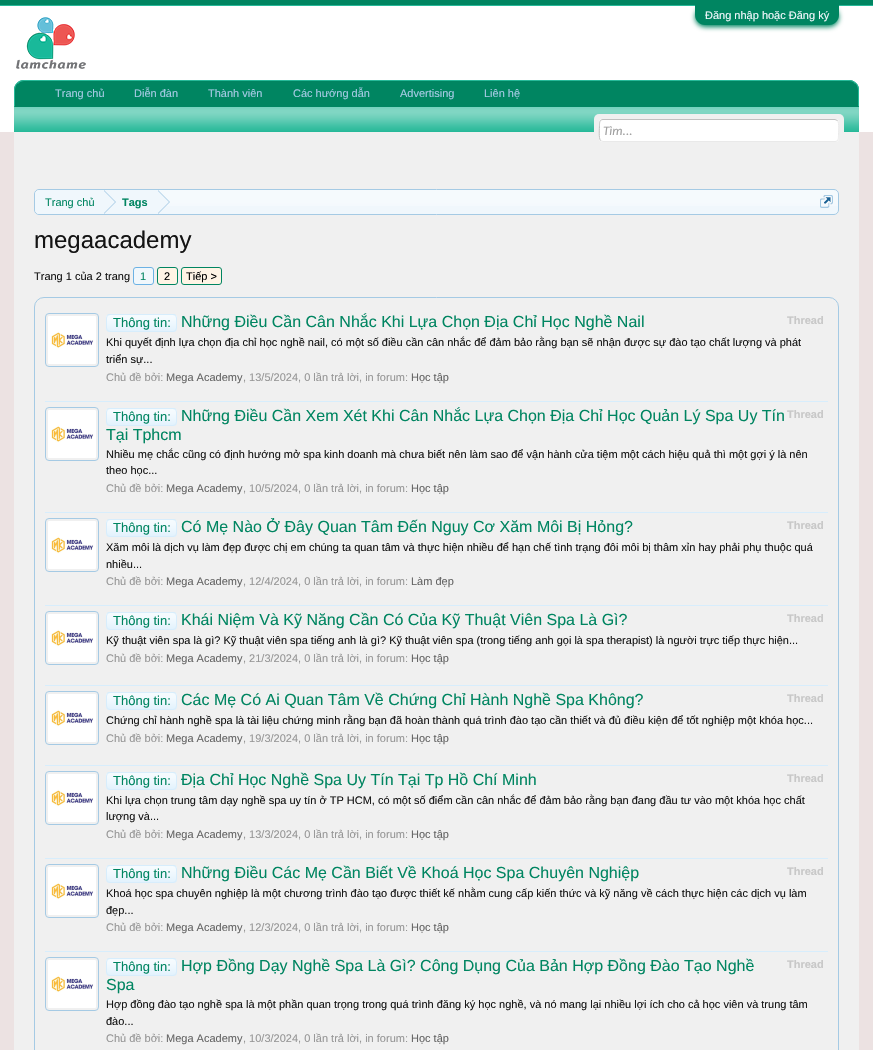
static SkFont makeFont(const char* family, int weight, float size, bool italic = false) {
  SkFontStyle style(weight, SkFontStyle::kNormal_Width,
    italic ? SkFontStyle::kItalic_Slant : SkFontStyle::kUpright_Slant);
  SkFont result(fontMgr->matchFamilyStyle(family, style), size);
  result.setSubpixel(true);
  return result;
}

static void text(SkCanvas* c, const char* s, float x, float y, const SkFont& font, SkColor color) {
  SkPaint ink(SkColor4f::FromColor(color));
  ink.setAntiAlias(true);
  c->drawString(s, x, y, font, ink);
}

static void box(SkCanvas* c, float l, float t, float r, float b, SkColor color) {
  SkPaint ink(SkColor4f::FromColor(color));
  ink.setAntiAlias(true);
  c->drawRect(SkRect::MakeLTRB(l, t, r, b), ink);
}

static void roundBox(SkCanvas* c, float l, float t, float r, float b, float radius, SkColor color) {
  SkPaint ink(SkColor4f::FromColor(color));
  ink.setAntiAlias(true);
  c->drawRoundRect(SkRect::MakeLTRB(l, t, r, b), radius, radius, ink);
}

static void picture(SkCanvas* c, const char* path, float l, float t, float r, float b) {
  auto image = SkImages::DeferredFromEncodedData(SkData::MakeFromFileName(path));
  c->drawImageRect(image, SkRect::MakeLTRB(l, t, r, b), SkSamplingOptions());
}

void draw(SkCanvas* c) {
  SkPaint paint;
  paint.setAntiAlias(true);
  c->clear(0xffece2e2);
  box(c, 0, 0, 873, 5, 0xff008561);
  box(c, 0, 5, 873, 6, 0xff27b999);
  box(c, 0, 6, 873, 132, 0xffffffff);
  paint.setColor(0xff008561);
  paint.setMaskFilter(SkMaskFilter::MakeBlur(kNormal_SkBlurStyle, 2.5f));
  c->drawRoundRect(SkRect::MakeLTRB(695, 7, 839, 27), 10, 10, paint);
  paint.setMaskFilter(nullptr);
  c->drawPath(SkPathBuilder().moveTo(695, 5).lineTo(839, 5).lineTo(839, 15).cubicTo(839, 20.5f, 834.5f, 25, 829, 25).lineTo(705, 25).cubicTo(699.5f, 25, 695, 20.5f, 695, 15).close().detach(), paint);
  SkFont face1 = makeFont("Liberation Sans", 400, 11);
  text(c, "Đăng nhập hoặc Đăng ký", 705, 19, face1, 0xfff0f7fc);
  picture(c, "img_01.png", 16, 17, 86, 69);
  c->drawPath(SkPathBuilder().moveTo(24, 80).lineTo(849, 80).cubicTo(854.5f, 80, 859, 84.5f, 859, 90).lineTo(859, 107).lineTo(14, 107).lineTo(14, 90).cubicTo(14, 84.5f, 18.5f, 80, 24, 80).close().detach(), paint);
  paint.setColor(0xff27b999);
  c->drawPath(SkPathBuilder().moveTo(24, 80).cubicTo(21, 80, 18, 81, 17, 83).lineTo(18, 84).cubicTo(19, 82, 22, 81, 24, 81).lineTo(849, 81).cubicTo(852, 81, 854, 82, 855, 84).lineTo(856, 83).cubicTo(854, 81, 852, 80, 849, 80).close().detach(), paint);
  c->drawPath(SkPathBuilder().moveTo(859, 107).lineTo(859, 90).cubicTo(859, 87, 858, 84.5f, 856, 83).lineTo(855.5f, 83.5f).cubicTo(857, 85, 858, 87.5f, 858, 90).lineTo(858, 106).close().detach(), paint);
  paint.setColor(0xff008561);
  c->drawPath(SkPathBuilder().moveTo(859, 107).lineTo(858, 106).lineTo(15, 106).lineTo(14, 107).close().detach(), paint);
  paint.setColor(0xff27b999);
  c->drawPath(SkPathBuilder().moveTo(14, 107).lineTo(15, 106).lineTo(15, 90).cubicTo(15, 87.5f, 16, 85, 17.5f, 83.5f).lineTo(17, 83).cubicTo(15, 84.5f, 14, 87, 14, 90).close().detach(), paint);
  text(c, "Trang chủ", 55, 97, face1, 0xffa5cae4);
  text(c, "Diễn đàn", 134, 97, face1, 0xffa5cae4);
  text(c, "Thành viên", 208, 97, face1, 0xffa5cae4);
  text(c, "Các hướng dẫn", 293, 97, face1, 0xffa5cae4);
  text(c, "Advertising", 400, 97, face1, 0xffa5cae4);
  text(c, "Liên hệ", 484, 97, face1, 0xffa5cae4);
  box(c, 14, 107, 859, 132, 0xff27b999);
  picture(c, "img_02.png", 14, 107, 859, 131);
  box(c, 14, 132, 859, 1050, 0xfff0f0f0);
  roundBox(c, 594, 114, 844, 142, 5, 0xfff0f0f0);
  roundBox(c, 599, 119, 839, 142, 4, 0xffffffff);
  paint.setStyle(SkPaint::kStroke_Style);
  paint.setStrokeWidth(1);
  paint.setColor(0xffe9e9e9);
  c->drawPath(SkPathBuilder().moveTo(837.5f, 120.5f).cubicTo(839.5f, 123, 838.5f, 132.5f, 838.5f, 135.5f).cubicTo(838.5f, 138, 838.5f, 141.5f, 835, 141.5f).lineTo(603, 141.5f).lineTo(600.5f, 140.5f).detach(), paint);
  paint.setColor(0xffc0c0c0);
  c->drawPath(SkPathBuilder().moveTo(600.5f, 140.5f).cubicTo(598.5f, 138, 599.5f, 128.5f, 599.5f, 125.5f).cubicTo(599.5f, 123, 599.5f, 119.5f, 603, 119.5f).lineTo(835, 119.5f).lineTo(837.5f, 120.5f).detach(), paint);
  SkFont face2 = makeFont("Carlito", 400, 13, true);
  text(c, "Tìm...", 603, 135, face2, 0xffa0a0a0);
  roundBox(c, 34, 189, 839, 215, 5, 0xfff0f7fc);
  picture(c, "img_03.png", 34, 190, 839, 206);
  paint.setColor(0xffa5cae4);
  c->drawRoundRect(SkRect::MakeLTRB(34.5f, 189.5f, 838.5f, 214.5f), 4.5f, 4.5f, paint);
  c->save();
  c->clipPath(SkPathBuilder().moveTo(39, 190).lineTo(834, 190).cubicTo(836, 190, 838, 192, 838, 194).lineTo(838, 210).cubicTo(838, 212, 836, 214, 834, 214).lineTo(39, 214).cubicTo(37, 214, 35, 212, 35, 210).lineTo(35, 194).cubicTo(35, 192, 37, 190, 39, 190).close().detach(), true);
  paint.setStyle(SkPaint::kFill_Style);
  paint.setColor(0xfff0f7fc);
  c->drawPath(SkPathBuilder().moveTo(40, 190).lineTo(104, 190).lineTo(104, 215).lineTo(40, 215).cubicTo(37, 215, 35, 213, 35, 210).lineTo(35, 195).cubicTo(35, 192, 37, 190, 40, 190).close().detach(), paint);
  c->restore();
  text(c, "Trang chủ", 45, 206, face1, 0xff008561);
  box(c, 104, 190, 158, 206, 0xfff0f7fc);
  paint.setColor(0xffa5cae4);
  c->drawPath(SkPathBuilder().moveTo(104, 214).lineTo(104, 190).lineTo(116, 202).close().detach(), paint);
  paint.setColor(0xfff0f7fc);
  c->drawPath(SkPathBuilder().moveTo(103, 214).lineTo(103, 190).lineTo(115, 202).close().detach(), paint);
  SkFont face3 = makeFont("Liberation Sans", 700, 11);
  text(c, "Tags", 122, 206, face3, 0xff008561);
  paint.setColor(0xffa5cae4);
  c->drawPath(SkPathBuilder().moveTo(158, 214).lineTo(158, 190).lineTo(170, 202).close().detach(), paint);
  paint.setColor(0xfff0f7fc);
  c->drawPath(SkPathBuilder().moveTo(157, 214).lineTo(157, 190).lineTo(169, 202).close().detach(), paint);
  picture(c, "img_04.png", 820, 195, 833, 208);
  SkFont face4 = makeFont("Liberation Sans", 400, 24);
  text(c, "megaacademy", 34, 248, face4, 0xff141414);
  text(c, "Trang 1 của 2 trang", 34, 280, face1, 0xff141414);
  c->drawRoundRect(SkRect::MakeLTRB(133.5f, 267.5f, 153.5f, 284.5f), 2.5f, 2.5f, paint);
  paint.setStyle(SkPaint::kStroke_Style);
  paint.setColor(0xff6cb2e4);
  c->drawRoundRect(SkRect::MakeLTRB(133.5f, 267.5f, 153.5f, 284.5f), 2.5f, 2.5f, paint);
  text(c, "1", 140, 280, face1, 0xff008561);
  paint.setStyle(SkPaint::kFill_Style);
  paint.setColor(0xfffff4e5);
  c->drawRoundRect(SkRect::MakeLTRB(157.5f, 267.5f, 177.5f, 284.5f), 2.5f, 2.5f, paint);
  paint.setStyle(SkPaint::kStroke_Style);
  paint.setColor(0xff008561);
  c->drawRoundRect(SkRect::MakeLTRB(157.5f, 267.5f, 177.5f, 284.5f), 2.5f, 2.5f, paint);
  text(c, "2", 164, 280, face1, 0xff000000);
  paint.setStyle(SkPaint::kFill_Style);
  paint.setColor(0xfffff4e5);
  c->drawRoundRect(SkRect::MakeLTRB(181.5f, 267.5f, 221.5f, 284.5f), 2.5f, 2.5f, paint);
  paint.setStyle(SkPaint::kStroke_Style);
  paint.setColor(0xff008561);
  c->drawRoundRect(SkRect::MakeLTRB(181.5f, 267.5f, 221.5f, 284.5f), 2.5f, 2.5f, paint);
  text(c, "Tiếp >", 186, 280, face1, 0xff000000);
  paint.setColor(0xffa5cae4);
  c->drawRoundRect(SkRect::MakeLTRB(34.5f, 297.5f, 838.5f, 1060.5f), 9.5f, 9.5f, paint);
  box(c, 45, 401, 828, 402, 0xffd7edfc);
  c->drawRoundRect(SkRect::MakeLTRB(45.5f, 313.5f, 98.5f, 366.5f), 3.5f, 3.5f, paint);
  picture(c, "img_05.png", 48, 316, 96, 364);
  roundBox(c, 106, 314, 177, 332, 4, 0xffd7edfc);
  picture(c, "img_06.png", 106, 315, 177, 332);
  paint.setColor(0xffd7edfc);
  c->drawRoundRect(SkRect::MakeLTRB(106.5f, 314.5f, 176.5f, 331.5f), 3.5f, 3.5f, paint);
  SkFont face5 = makeFont("Liberation Sans", 400, 13);
  text(c, "Thông tin:", 113, 327, face5, 0xff008561);
  SkFont face6 = makeFont("Liberation Sans", 400, 16);
  text(c, "Những Điều Cần Cân Nhắc Khi Lựa Chọn Địa Chỉ Học Nghề Nail", 181, 327, face6, 0xff008561);
  text(c, "Thread", 787, 324, face3, 0xffc8c8c8);
  text(c, "Khi quyết định lựa chọn địa chỉ học nghề nail, có một số điều cần cân nhắc để đảm bảo rằng bạn sẽ nhận được sự đào tạo chất lượng và phát", 106, 346, face1, 0xff141414);
  text(c, "triển sự...", 106, 363, face1, 0xff141414);
  text(c, "Chủ đề bởi:", 106, 381, face1, 0xff969696);
  text(c, "Mega Academy", 166, 381, face1, 0xff646464);
  text(c, ", 13/5/2024, 0 lần trả lời, in forum:", 243, 381, face1, 0xff969696);
  text(c, "Học tập", 411, 381, face1, 0xff646464);
  box(c, 45, 512, 828, 513, 0xffd7edfc);
  paint.setColor(0xffa5cae4);
  c->drawRoundRect(SkRect::MakeLTRB(45.5f, 407.5f, 98.5f, 460.5f), 3.5f, 3.5f, paint);
  picture(c, "img_05.png", 48, 410, 96, 458);
  roundBox(c, 106, 408, 177, 426, 4, 0xffd7edfc);
  picture(c, "img_06.png", 106, 409, 177, 426);
  paint.setColor(0xffd7edfc);
  c->drawRoundRect(SkRect::MakeLTRB(106.5f, 408.5f, 176.5f, 425.5f), 3.5f, 3.5f, paint);
  text(c, "Thông tin:", 113, 421, face5, 0xff008561);
  text(c, "Những Điều Cần Xem Xét Khi Cân Nhắc Lựa Chọn Địa Chỉ Học Quản Lý Spa Uy Tín", 181, 421, face6, 0xff008561);
  text(c, "Tại Tphcm", 106, 440, face6, 0xff008561);
  text(c, "Thread", 787, 418, face3, 0xffc8c8c8);
  text(c, "Nhiều mẹ chắc cũng có định hướng mở spa kinh doanh mà chưa biết nên làm sao để vận hành cửa tiệm một cách hiệu quả thì một gợi ý là nên", 106, 458, face1, 0xff141414);
  text(c, "theo học...", 106, 474, face1, 0xff141414);
  text(c, "Chủ đề bởi:", 106, 492, face1, 0xff969696);
  text(c, "Mega Academy", 166, 492, face1, 0xff646464);
  text(c, ", 10/5/2024, 0 lần trả lời, in forum:", 243, 492, face1, 0xff969696);
  text(c, "Học tập", 411, 492, face1, 0xff646464);
  box(c, 45, 605, 828, 606, 0xffd7edfc);
  paint.setColor(0xffa5cae4);
  c->drawRoundRect(SkRect::MakeLTRB(45.5f, 518.5f, 98.5f, 571.5f), 3.5f, 3.5f, paint);
  picture(c, "img_05.png", 48, 521, 96, 569);
  roundBox(c, 106, 519, 177, 537, 4, 0xffd7edfc);
  picture(c, "img_06.png", 106, 520, 177, 537);
  paint.setColor(0xffd7edfc);
  c->drawRoundRect(SkRect::MakeLTRB(106.5f, 519.5f, 176.5f, 536.5f), 3.5f, 3.5f, paint);
  text(c, "Thông tin:", 113, 532, face5, 0xff008561);
  c->save();
  c->clipRect(SkRect::MakeLTRB(106, 518, 823, 537));
  text(c, "Có Mẹ Nào Ở Đây Quan Tâm Đến Nguy Cơ Xăm Môi Bị Hỏng?", 181, 532, face6, 0xff008561);
  c->restore();
  text(c, "Thread", 787, 529, face3, 0xffc8c8c8);
  text(c, "Xăm môi là dịch vụ làm đẹp được chị em chúng ta quan tâm và thực hiện nhiều để hạn chế tình trạng đôi môi bị thâm xỉn hay phải phụ thuộc quá", 106, 551, face1, 0xff141414);
  text(c, "nhiều...", 106, 568, face1, 0xff141414);
  text(c, "Chủ đề bởi:", 106, 585, face1, 0xff969696);
  text(c, "Mega Academy", 166, 585, face1, 0xff646464);
  text(c, ", 12/4/2024, 0 lần trả lời, in forum:", 243, 585, face1, 0xff969696);
  text(c, "Làm đẹp", 411, 585, face1, 0xff646464);
  box(c, 45, 685, 828, 686, 0xffd7edfc);
  paint.setColor(0xffa5cae4);
  c->drawRoundRect(SkRect::MakeLTRB(45.5f, 611.5f, 98.5f, 664.5f), 3.5f, 3.5f, paint);
  picture(c, "img_05.png", 48, 614, 96, 662);
  roundBox(c, 106, 612, 177, 630, 4, 0xffd7edfc);
  picture(c, "img_06.png", 106, 613, 177, 630);
  paint.setColor(0xffd7edfc);
  c->drawRoundRect(SkRect::MakeLTRB(106.5f, 612.5f, 176.5f, 629.5f), 3.5f, 3.5f, paint);
  text(c, "Thông tin:", 113, 625, face5, 0xff008561);
  text(c, "Khái Niệm Và Kỹ Năng Cần Có Của Kỹ Thuật Viên Spa Là Gì?", 181, 625, face6, 0xff008561);
  text(c, "Thread", 787, 622, face3, 0xffc8c8c8);
  text(c, "Kỹ thuật viên spa là gì? Kỹ thuật viên spa tiếng anh là gì? Kỹ thuật viên spa (trong tiếng anh gọi là spa therapist) là người trực tiếp thực hiện...", 106, 644, face1, 0xff141414);
  text(c, "Chủ đề bởi:", 106, 662, face1, 0xff969696);
  text(c, "Mega Academy", 166, 662, face1, 0xff646464);
  text(c, ", 21/3/2024, 0 lần trả lời, in forum:", 243, 662, face1, 0xff969696);
  text(c, "Học tập", 411, 662, face1, 0xff646464);
  box(c, 45, 765, 828, 766, 0xffd7edfc);
  paint.setColor(0xffa5cae4);
  c->drawRoundRect(SkRect::MakeLTRB(45.5f, 691.5f, 98.5f, 744.5f), 3.5f, 3.5f, paint);
  picture(c, "img_05.png", 48, 694, 96, 742);
  roundBox(c, 106, 692, 177, 710, 4, 0xffd7edfc);
  picture(c, "img_06.png", 106, 693, 177, 710);
  paint.setColor(0xffd7edfc);
  c->drawRoundRect(SkRect::MakeLTRB(106.5f, 692.5f, 176.5f, 709.5f), 3.5f, 3.5f, paint);
  text(c, "Thông tin:", 113, 705, face5, 0xff008561);
  text(c, "Các Mẹ Có Ai Quan Tâm Về Chứng Chỉ Hành Nghề Spa Không?", 181, 705, face6, 0xff008561);
  text(c, "Thread", 787, 702, face3, 0xffc8c8c8);
  text(c, "Chứng chỉ hành nghề spa là tài liệu chứng minh rằng bạn đã hoàn thành quá trình đào tạo cần thiết và đủ điều kiện để tốt nghiệp một khóa học...", 106, 724, face1, 0xff141414);
  text(c, "Chủ đề bởi:", 106, 742, face1, 0xff969696);
  text(c, "Mega Academy", 166, 742, face1, 0xff646464);
  text(c, ", 19/3/2024, 0 lần trả lời, in forum:", 243, 742, face1, 0xff969696);
  text(c, "Học tập", 411, 742, face1, 0xff646464);
  box(c, 45, 858, 828, 859, 0xffd7edfc);
  paint.setColor(0xffa5cae4);
  c->drawRoundRect(SkRect::MakeLTRB(45.5f, 771.5f, 98.5f, 824.5f), 3.5f, 3.5f, paint);
  picture(c, "img_05.png", 48, 774, 96, 822);
  roundBox(c, 106, 772, 177, 790, 4, 0xffd7edfc);
  picture(c, "img_06.png", 106, 773, 177, 790);
  paint.setColor(0xffd7edfc);
  c->drawRoundRect(SkRect::MakeLTRB(106.5f, 772.5f, 176.5f, 789.5f), 3.5f, 3.5f, paint);
  text(c, "Thông tin:", 113, 785, face5, 0xff008561);
  text(c, "Địa Chỉ Học Nghề Spa Uy Tín Tại Tp Hồ Chí Minh", 181, 785, face6, 0xff008561);
  text(c, "Thread", 787, 782, face3, 0xffc8c8c8);
  text(c, "Khi lựa chọn trung tâm dạy nghề spa uy tín ở TP HCM, có một số điểm cần cân nhắc để đảm bảo rằng bạn đang đầu tư vào một khóa học chất", 106, 804, face1, 0xff141414);
  text(c, "lượng và...", 106, 820, face1, 0xff141414);
  text(c, "Chủ đề bởi:", 106, 838, face1, 0xff969696);
  text(c, "Mega Academy", 166, 838, face1, 0xff646464);
  text(c, ", 13/3/2024, 0 lần trả lời, in forum:", 243, 838, face1, 0xff969696);
  text(c, "Học tập", 411, 838, face1, 0xff646464);
  box(c, 45, 951, 828, 952, 0xffd7edfc);
  paint.setColor(0xffa5cae4);
  c->drawRoundRect(SkRect::MakeLTRB(45.5f, 864.5f, 98.5f, 917.5f), 3.5f, 3.5f, paint);
  picture(c, "img_05.png", 48, 867, 96, 915);
  roundBox(c, 106, 865, 177, 883, 4, 0xffd7edfc);
  picture(c, "img_06.png", 106, 866, 177, 883);
  paint.setColor(0xffd7edfc);
  c->drawRoundRect(SkRect::MakeLTRB(106.5f, 865.5f, 176.5f, 882.5f), 3.5f, 3.5f, paint);
  text(c, "Thông tin:", 113, 878, face5, 0xff008561);
  text(c, "Những Điều Các Mẹ Cần Biết Về Khoá Học Spa Chuyên Nghiệp", 181, 878, face6, 0xff008561);
  text(c, "Thread", 787, 875, face3, 0xffc8c8c8);
  text(c, "Khoá học spa chuyên nghiệp là một chương trình đào tạo được thiết kế nhằm cung cấp kiến thức và kỹ năng về cách thực hiện các dịch vụ làm", 106, 897, face1, 0xff141414);
  text(c, "đẹp...", 106, 914, face1, 0xff141414);
  text(c, "Chủ đề bởi:", 106, 931, face1, 0xff969696);
  text(c, "Mega Academy", 166, 931, face1, 0xff646464);
  text(c, ", 12/3/2024, 0 lần trả lời, in forum:", 243, 931, face1, 0xff969696);
  text(c, "Học tập", 411, 931, face1, 0xff646464);
  paint.setColor(0xffa5cae4);
  c->drawRoundRect(SkRect::MakeLTRB(45.5f, 957.5f, 98.5f, 1010.5f), 3.5f, 3.5f, paint);
  picture(c, "img_05.png", 48, 960, 96, 1008);
  roundBox(c, 106, 958, 177, 976, 4, 0xffd7edfc);
  picture(c, "img_06.png", 106, 959, 177, 976);
  paint.setColor(0xffd7edfc);
  c->drawRoundRect(SkRect::MakeLTRB(106.5f, 958.5f, 176.5f, 975.5f), 3.5f, 3.5f, paint);
  text(c, "Thông tin:", 113, 971, face5, 0xff008561);
  text(c, "Hợp Đồng Dạy Nghề Spa Là Gì? Công Dụng Của Bản Hợp Đồng Đào Tạo Nghề", 181, 971, face6, 0xff008561);
  text(c, "Spa", 106, 990, face6, 0xff008561);
  text(c, "Thread", 787, 968, face3, 0xffc8c8c8);
  text(c, "Hợp đồng đào tạo nghề spa là một phần quan trọng trong quá trình đăng ký học nghề, và nó mang lại nhiều lợi ích cho cả học viên và trung tâm", 106, 1008, face1, 0xff141414);
  text(c, "đào...", 106, 1025, face1, 0xff141414);
  text(c, "Chủ đề bởi:", 106, 1042, face1, 0xff969696);
  text(c, "Mega Academy", 166, 1042, face1, 0xff646464);
  text(c, ", 10/3/2024, 0 lần trả lời, in forum:", 243, 1042, face1, 0xff969696);
  text(c, "Học tập", 411, 1042, face1, 0xff646464);
}
